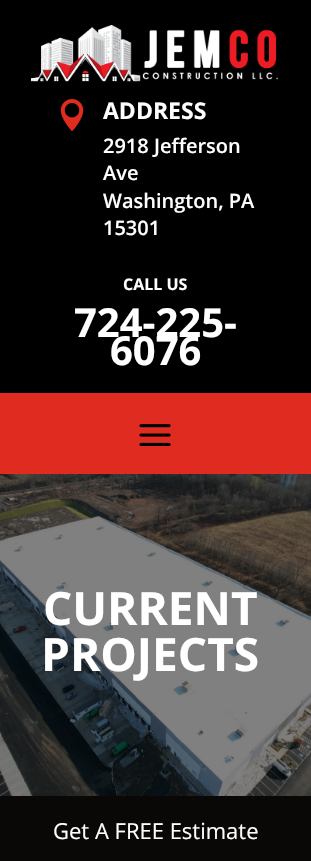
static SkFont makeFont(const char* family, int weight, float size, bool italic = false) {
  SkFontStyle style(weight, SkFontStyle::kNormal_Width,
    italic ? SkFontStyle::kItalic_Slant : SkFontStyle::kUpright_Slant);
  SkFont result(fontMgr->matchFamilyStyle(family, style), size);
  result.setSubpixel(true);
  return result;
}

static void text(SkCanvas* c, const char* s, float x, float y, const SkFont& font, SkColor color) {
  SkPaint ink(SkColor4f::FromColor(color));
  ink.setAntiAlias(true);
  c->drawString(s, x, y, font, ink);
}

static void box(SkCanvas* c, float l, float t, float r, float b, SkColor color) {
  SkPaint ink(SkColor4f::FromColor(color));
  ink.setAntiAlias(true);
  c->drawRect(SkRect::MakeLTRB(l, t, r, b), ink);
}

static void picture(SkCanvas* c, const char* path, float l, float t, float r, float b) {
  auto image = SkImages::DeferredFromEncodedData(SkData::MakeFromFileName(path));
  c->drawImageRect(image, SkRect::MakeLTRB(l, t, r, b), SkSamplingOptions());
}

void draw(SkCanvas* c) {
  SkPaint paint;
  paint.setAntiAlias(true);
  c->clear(0xffffffff);
  box(c, 0, 0, 311, 393, 0xff000000);
  picture(c, "img_01.png", 31, 25, 278, 82);
  picture(c, "img_02.png", 60, 99, 84, 131);
  SkFont face1 = makeFont("Open Sans", 700, 23);
  text(c, "ADDRESS", 103, 119, face1, 0xffffffff);
  SkFont face2 = makeFont("Open Sans", 600, 20);
  text(c, "2918 Jefferson", 103, 153, face2, 0xffffffff);
  text(c, "Ave", 103, 180, face2, 0xffffffff);
  text(c, "Washington, PA", 103, 208, face2, 0xffffffff);
  text(c, "15301", 103, 235, face2, 0xffffffff);
  SkFont face3 = makeFont("Open Sans", 700, 16);
  text(c, "CALL US", 123, 290, face3, 0xffffffff);
  SkFont face4 = makeFont("Open Sans", 700, 40);
  text(c, "724-225-", 74, 337, face4, 0xffffffff);
  text(c, "6076", 110, 365, face4, 0xffffffff);
  box(c, 0, 393, 311, 474, 0xffe02b20);
  picture(c, "img_03.png", 139, 424, 171, 446);
  picture(c, "img_04.png", 0, 474, 311, 796);
  SkFont face5 = makeFont("Open Sans", 700, 46);
  text(c, "CURRENT", 43, 625, face5, 0xffffffff);
  text(c, "PROJECTS", 41, 671, face5, 0xffffffff);
  box(c, 0, 796, 311, 861, 0xff0a0707);
  SkFont face6 = makeFont("Open Sans", 400, 22);
  text(c, "Get A FREE Estimate", 53, 839, face6, 0xffffffff);
}
